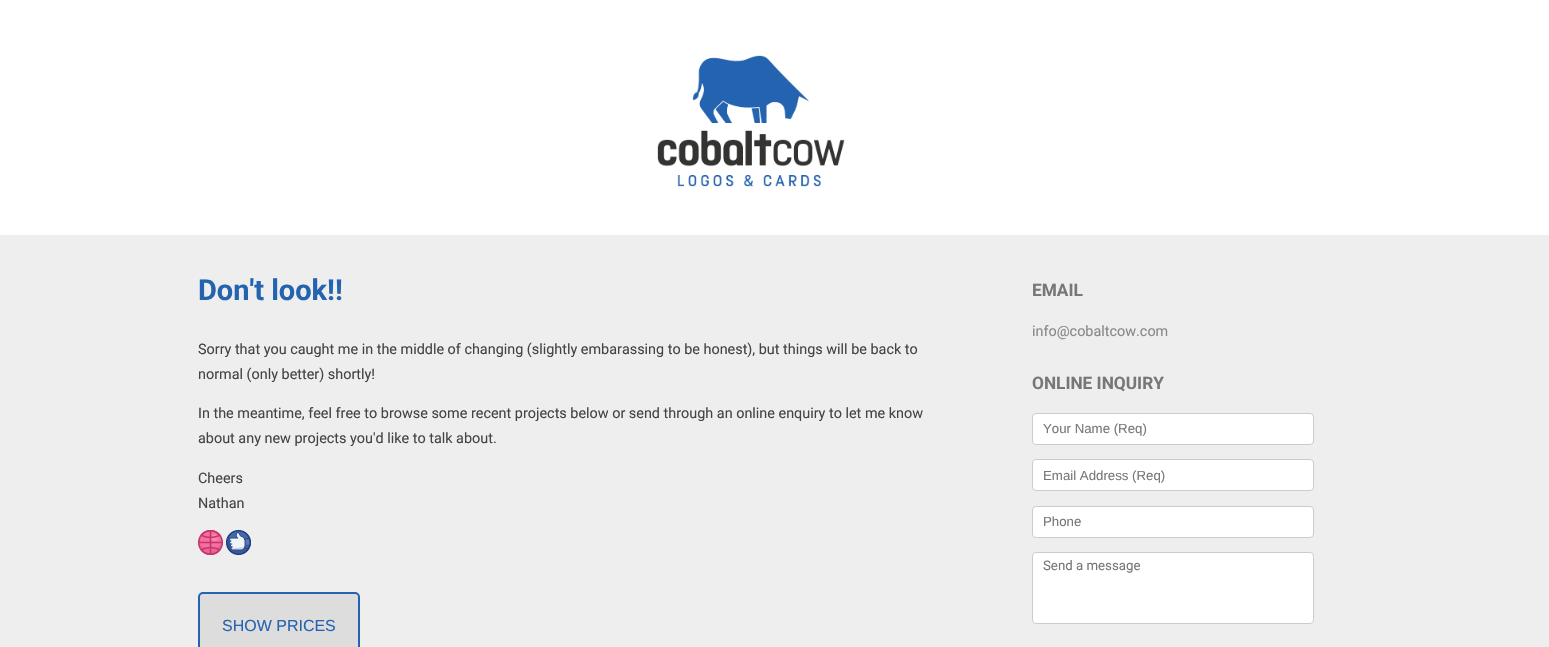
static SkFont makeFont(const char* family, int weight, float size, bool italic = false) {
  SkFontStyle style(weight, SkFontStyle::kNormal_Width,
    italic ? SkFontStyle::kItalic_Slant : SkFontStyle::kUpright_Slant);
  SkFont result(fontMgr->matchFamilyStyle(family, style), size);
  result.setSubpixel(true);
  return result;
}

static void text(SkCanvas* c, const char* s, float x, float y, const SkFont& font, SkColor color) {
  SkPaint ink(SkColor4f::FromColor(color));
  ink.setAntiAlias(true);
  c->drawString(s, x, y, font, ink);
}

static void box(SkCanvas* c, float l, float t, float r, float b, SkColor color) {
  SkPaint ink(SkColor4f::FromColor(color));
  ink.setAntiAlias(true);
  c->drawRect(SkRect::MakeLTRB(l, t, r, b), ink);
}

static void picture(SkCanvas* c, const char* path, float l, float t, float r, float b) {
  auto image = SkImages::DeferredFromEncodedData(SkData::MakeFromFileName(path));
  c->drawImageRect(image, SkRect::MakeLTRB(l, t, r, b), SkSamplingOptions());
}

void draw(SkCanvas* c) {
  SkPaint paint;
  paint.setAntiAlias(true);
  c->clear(0xffeeeeee);
  box(c, 0, 0, 1549, 235, 0xffffffff);
  picture(c, "img_01.png", 657, 55, 845, 187);
  SkFont face1 = makeFont("Roboto", 700, 29);
  text(c, "Don't look!!", 198, 300, face1, 0xff2463af);
  SkFont face2 = makeFont("Roboto", 400, 14.4f);
  text(c, "Sorry that you caught me in the middle of changing (slightly embarassing to be honest), but things will be back to", 198, 354, face2, 0xff444444);
  text(c, "normal (only better) shortly!", 198, 379, face2, 0xff444444);
  text(c, "In the meantime, feel free to browse some recent projects below or send through an online enquiry to let me know", 198, 418, face2, 0xff444444);
  text(c, "about any new projects you'd like to talk about.", 198, 443, face2, 0xff444444);
  text(c, "Cheers", 198, 483, face2, 0xff444444);
  text(c, "Nathan", 198, 508, face2, 0xff444444);
  picture(c, "img_02.png", 198, 530, 223, 555);
  picture(c, "img_03.png", 226, 530, 251, 555);
  paint.setColor(0xffdddddd);
  c->drawRoundRect(SkRect::MakeLTRB(199, 593, 359, 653), 4, 4, paint);
  paint.setStyle(SkPaint::kStroke_Style);
  paint.setStrokeWidth(2);
  paint.setColor(0xff2463af);
  c->drawRoundRect(SkRect::MakeLTRB(199, 593, 359, 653), 4, 4, paint);
  SkFont face3 = makeFont("Liberation Sans", 400, 16);
  text(c, "SHOW PRICES", 222, 631, face3, 0xff2463af);
  SkFont face4 = makeFont("Roboto", 700, 17.25f);
  text(c, "EMAIL", 1032, 296, face4, 0xff777777);
  text(c, "info@cobaltcow.com", 1032, 336, face2, 0xff888888);
  text(c, "ONLINE INQUIRY", 1032, 389, face4, 0xff777777);
  paint.setStyle(SkPaint::kFill_Style);
  paint.setColor(0xffffffff);
  c->drawRoundRect(SkRect::MakeLTRB(1032.5f, 413.5f, 1313.5f, 444.5f), 3.5f, 3.5f, paint);
  paint.setStyle(SkPaint::kStroke_Style);
  paint.setStrokeWidth(1);
  paint.setColor(0xffcccccc);
  c->drawRoundRect(SkRect::MakeLTRB(1032.5f, 413.5f, 1313.5f, 444.5f), 3.5f, 3.5f, paint);
  SkFont face5 = makeFont("Liberation Sans", 400, 13.25f);
  text(c, "Your Name (Req)", 1043, 433, face5, 0xff777777);
  paint.setStyle(SkPaint::kFill_Style);
  paint.setColor(0xffffffff);
  c->drawRoundRect(SkRect::MakeLTRB(1032.5f, 459.5f, 1313.5f, 490.5f), 3.5f, 3.5f, paint);
  paint.setStyle(SkPaint::kStroke_Style);
  paint.setColor(0xffcccccc);
  c->drawRoundRect(SkRect::MakeLTRB(1032.5f, 459.5f, 1313.5f, 490.5f), 3.5f, 3.5f, paint);
  text(c, "Email Address (Req)", 1043, 480, face5, 0xff777777);
  paint.setStyle(SkPaint::kFill_Style);
  paint.setColor(0xffffffff);
  c->drawRoundRect(SkRect::MakeLTRB(1032.5f, 506.5f, 1313.5f, 537.5f), 3.5f, 3.5f, paint);
  paint.setStyle(SkPaint::kStroke_Style);
  paint.setColor(0xffcccccc);
  c->drawRoundRect(SkRect::MakeLTRB(1032.5f, 506.5f, 1313.5f, 537.5f), 3.5f, 3.5f, paint);
  text(c, "Phone", 1043, 526, face5, 0xff777777);
  paint.setStyle(SkPaint::kFill_Style);
  paint.setColor(0xffffffff);
  c->drawRoundRect(SkRect::MakeLTRB(1032.5f, 552.5f, 1313.5f, 623.5f), 3.5f, 3.5f, paint);
  paint.setStyle(SkPaint::kStroke_Style);
  paint.setColor(0xffcccccc);
  c->drawRoundRect(SkRect::MakeLTRB(1032.5f, 552.5f, 1313.5f, 623.5f), 3.5f, 3.5f, paint);
  SkFont face6 = makeFont("Roboto", 400, 13.25f);
  text(c, "Send a message", 1043, 570, face6, 0xff777777);
}
